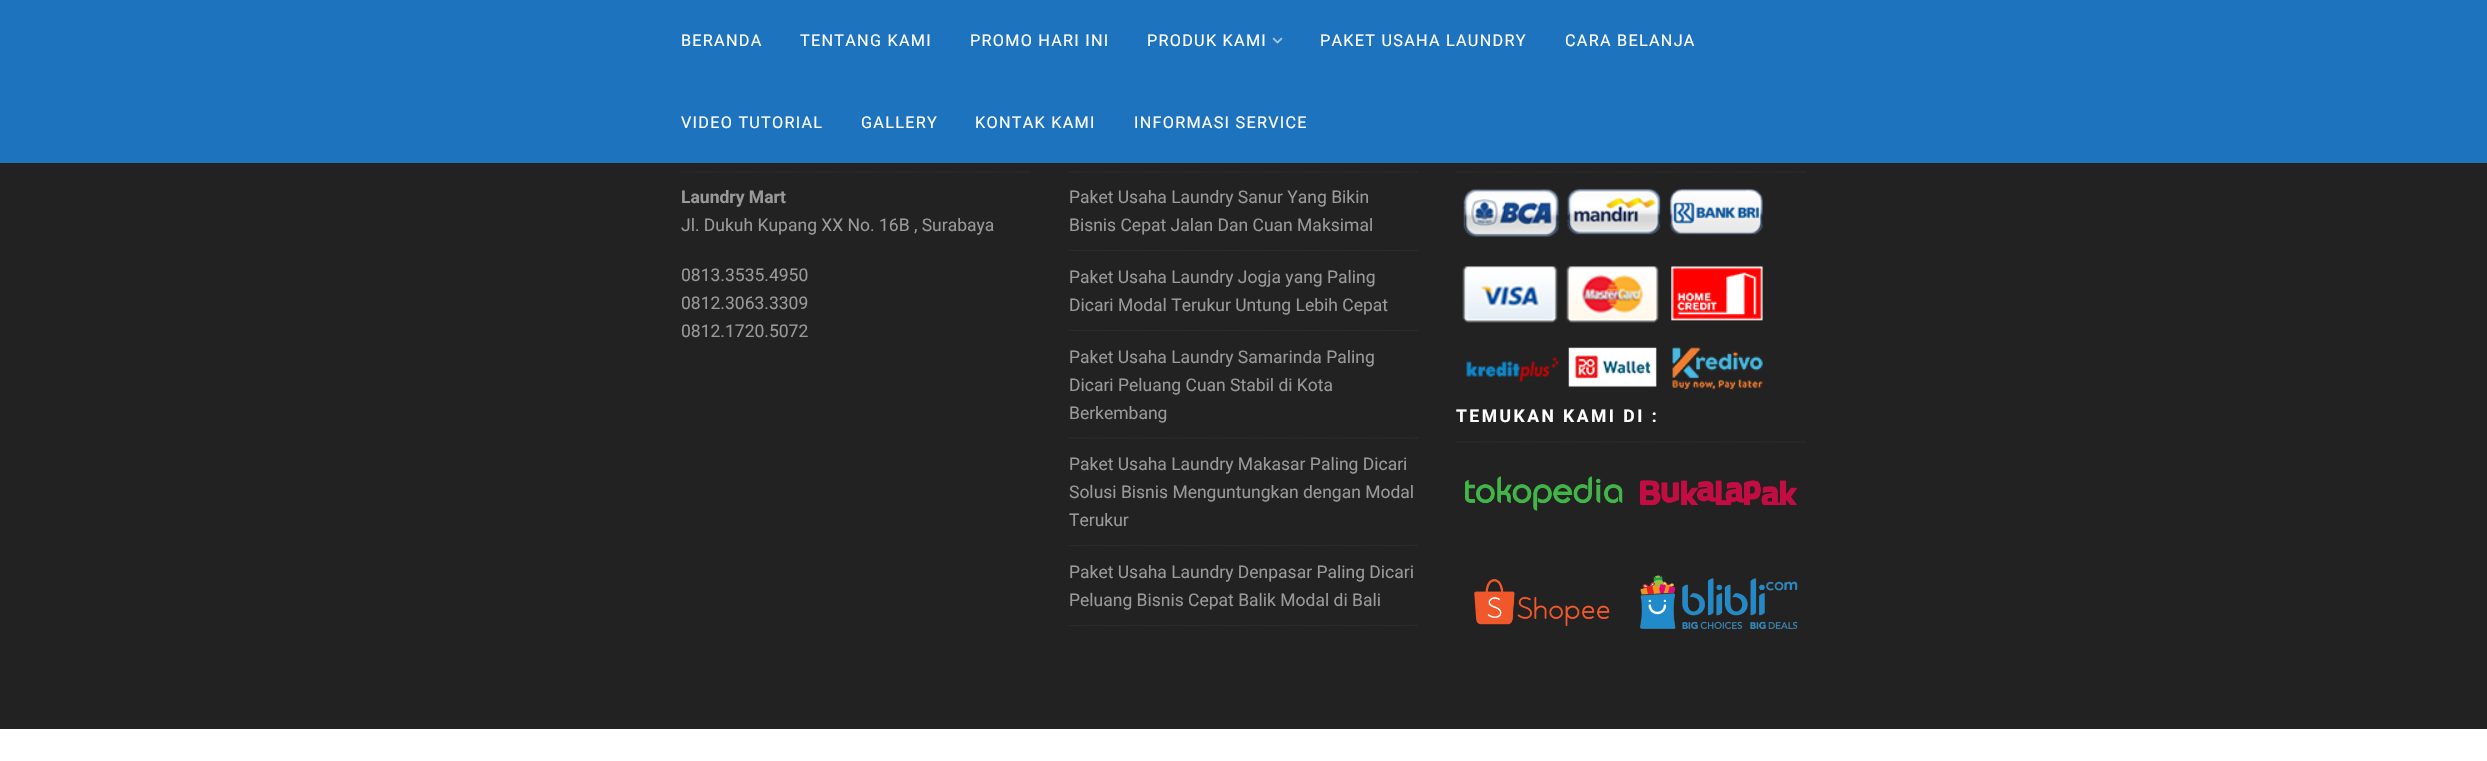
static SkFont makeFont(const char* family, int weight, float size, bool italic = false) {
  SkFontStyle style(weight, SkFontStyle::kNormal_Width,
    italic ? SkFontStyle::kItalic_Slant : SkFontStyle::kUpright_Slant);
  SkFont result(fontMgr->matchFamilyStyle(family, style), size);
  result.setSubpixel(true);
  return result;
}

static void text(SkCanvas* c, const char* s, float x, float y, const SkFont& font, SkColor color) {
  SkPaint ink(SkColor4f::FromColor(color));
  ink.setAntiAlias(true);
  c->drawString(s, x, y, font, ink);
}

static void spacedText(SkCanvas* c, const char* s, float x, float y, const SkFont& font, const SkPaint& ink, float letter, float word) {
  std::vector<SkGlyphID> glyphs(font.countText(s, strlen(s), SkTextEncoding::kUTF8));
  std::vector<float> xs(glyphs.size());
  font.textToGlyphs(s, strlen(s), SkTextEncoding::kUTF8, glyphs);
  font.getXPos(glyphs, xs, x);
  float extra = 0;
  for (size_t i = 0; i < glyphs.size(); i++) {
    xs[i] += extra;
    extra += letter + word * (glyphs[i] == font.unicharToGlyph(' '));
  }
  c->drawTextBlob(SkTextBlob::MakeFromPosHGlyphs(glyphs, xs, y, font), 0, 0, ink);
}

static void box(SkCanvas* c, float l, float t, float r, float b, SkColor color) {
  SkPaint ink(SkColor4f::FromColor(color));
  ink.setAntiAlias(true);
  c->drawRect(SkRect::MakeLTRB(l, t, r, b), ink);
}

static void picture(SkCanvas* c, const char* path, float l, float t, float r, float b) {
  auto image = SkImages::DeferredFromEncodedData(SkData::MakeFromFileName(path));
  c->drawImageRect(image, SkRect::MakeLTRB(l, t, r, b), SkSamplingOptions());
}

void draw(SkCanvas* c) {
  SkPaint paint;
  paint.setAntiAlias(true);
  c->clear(0xffffffff);
  box(c, 0, 0, 2487, 163, 0xff1e73be);
  SkFont face1 = makeFont("Roboto", 400, 16.25f);
  paint.setColor(0xffffffff);
  spacedText(c, "BERANDA", 681, 46, face1, paint, 1.25f, 0);
  spacedText(c, "TENTANG KAMI", 800, 46, face1, paint, 1.25f, 0);
  spacedText(c, "PROMO HARI INI", 970, 46, face1, paint, 1.25f, 0);
  spacedText(c, "PRODUK KAMI", 1147, 46, face1, paint, 1.25f, 0);
  picture(c, "img_01.png", 1272, 37, 1283, 44);
  spacedText(c, "PAKET USAHA LAUNDRY", 1320, 46, face1, paint, 1.25f, 0);
  spacedText(c, "CARA BELANJA", 1565, 46, face1, paint, 1.25f, 0);
  spacedText(c, "VIDEO TUTORIAL", 681, 128, face1, paint, 1.25f, 0);
  spacedText(c, "GALLERY", 861, 128, face1, paint, 1.25f, 0);
  spacedText(c, "KONTAK KAMI", 975, 128, face1, paint, 1.25f, 0);
  spacedText(c, "INFORMASI SERVICE", 1134, 128, face1, paint, 1.25f, 0);
  box(c, 0, 163, 2487, 729, 0xff222222);
  paint.setStyle(SkPaint::kStroke_Style);
  paint.setStrokeWidth(1.2f);
  paint.setColor(0xff333333);
  paint.setPathEffect(SkDashPathEffect::Make({{1.25f, 1.25f}}, 0));
  c->drawPath(SkPathBuilder().moveTo(681, 172).lineTo(1031, 172).detach(), paint);
  paint.setPathEffect(nullptr);
  SkFont face2 = makeFont("Roboto", 700, 17.5f);
  text(c, "Laundry Mart", 681, 203, face2, 0xff999999);
  SkFont face3 = makeFont("Roboto", 400, 17.5f);
  text(c, "Jl. Dukuh Kupang XX No. 16B , Surabaya", 681, 231, face3, 0xff999999);
  text(c, "0813.3535.4950", 681, 281, face3, 0xff999999);
  text(c, "0812.3063.3309", 681, 309, face3, 0xff999999);
  text(c, "0812.1720.5072", 681, 337, face3, 0xff999999);
  paint.setPathEffect(SkDashPathEffect::Make({{1.25f, 1.25f}}, 0));
  c->drawPath(SkPathBuilder().moveTo(1069, 172).lineTo(1419, 172).detach(), paint);
  paint.setPathEffect(nullptr);
  paint.setPathEffect(SkDashPathEffect::Make({{1.25f, 1.25f}}, 0));
  c->drawPath(SkPathBuilder().moveTo(1069, 250.5f).lineTo(1419, 250.5f).detach(), paint);
  paint.setPathEffect(nullptr);
  text(c, "Paket Usaha Laundry Sanur Yang Bikin", 1069, 203, face3, 0xff999999);
  text(c, "Bisnis Cepat Jalan Dan Cuan Maksimal", 1069, 231, face3, 0xff999999);
  paint.setPathEffect(SkDashPathEffect::Make({{1.25f, 1.25f}}, 0));
  c->drawPath(SkPathBuilder().moveTo(1069, 330.5f).lineTo(1419, 330.5f).detach(), paint);
  paint.setPathEffect(nullptr);
  text(c, "Paket Usaha Laundry Jogja yang Paling", 1069, 283, face3, 0xff999999);
  text(c, "Dicari Modal Terukur Untung Lebih Cepat", 1069, 311, face3, 0xff999999);
  paint.setPathEffect(SkDashPathEffect::Make({{1.25f, 1.25f}}, 0));
  c->drawPath(SkPathBuilder().moveTo(1069, 438).lineTo(1419, 438).detach(), paint);
  paint.setPathEffect(nullptr);
  text(c, "Paket Usaha Laundry Samarinda Paling", 1069, 363, face3, 0xff999999);
  text(c, "Dicari Peluang Cuan Stabil di Kota", 1069, 391, face3, 0xff999999);
  text(c, "Berkembang", 1069, 419, face3, 0xff999999);
  paint.setPathEffect(SkDashPathEffect::Make({{1.25f, 1.25f}}, 0));
  c->drawPath(SkPathBuilder().moveTo(1069, 545.5f).lineTo(1419, 545.5f).detach(), paint);
  paint.setPathEffect(nullptr);
  text(c, "Paket Usaha Laundry Makasar Paling Dicari", 1069, 470, face3, 0xff999999);
  text(c, "Solusi Bisnis Menguntungkan dengan Modal", 1069, 498, face3, 0xff999999);
  text(c, "Terukur", 1069, 526, face3, 0xff999999);
  paint.setPathEffect(SkDashPathEffect::Make({{1.25f, 1.25f}}, 0));
  c->drawPath(SkPathBuilder().moveTo(1069, 625.5f).lineTo(1419, 625.5f).detach(), paint);
  paint.setPathEffect(nullptr);
  text(c, "Paket Usaha Laundry Denpasar Paling Dicari", 1069, 578, face3, 0xff999999);
  text(c, "Peluang Bisnis Cepat Balik Modal di Bali", 1069, 606, face3, 0xff999999);
  paint.setPathEffect(SkDashPathEffect::Make({{1.25f, 1.25f}}, 0));
  c->drawPath(SkPathBuilder().moveTo(1456, 172).lineTo(1806, 172).detach(), paint);
  paint.setPathEffect(nullptr);
  picture(c, "img_02.png", 1462, 188, 1763, 390);
  paint.setPathEffect(SkDashPathEffect::Make({{1.25f, 1.25f}}, 0));
  c->drawPath(SkPathBuilder().moveTo(1456, 442).lineTo(1806, 442).detach(), paint);
  paint.setPathEffect(nullptr);
  paint.setStyle(SkPaint::kFill_Style);
  paint.setColor(0xffffffff);
  spacedText(c, "TEMUKAN KAMI DI :", 1456, 422, face2, paint, 2.5f, 0);
  picture(c, "img_03.png", 1465, 476, 1623, 511);
  picture(c, "img_04.png", 1640, 480, 1798, 506);
  picture(c, "img_05.png", 1474, 579, 1610, 627);
  picture(c, "img_06.png", 1640, 575, 1798, 629);
}
